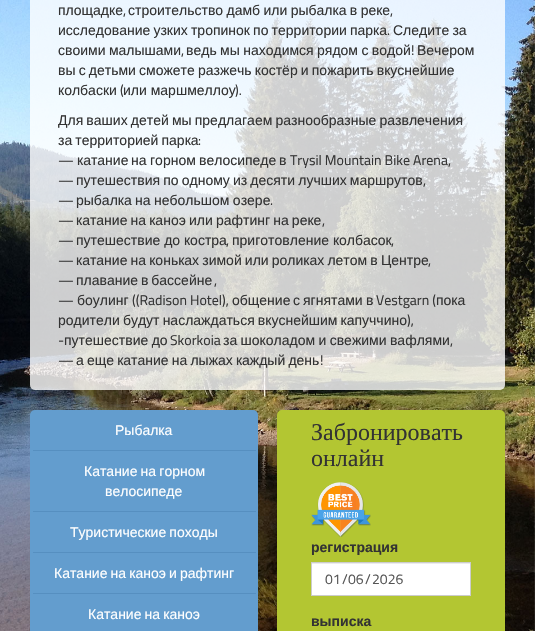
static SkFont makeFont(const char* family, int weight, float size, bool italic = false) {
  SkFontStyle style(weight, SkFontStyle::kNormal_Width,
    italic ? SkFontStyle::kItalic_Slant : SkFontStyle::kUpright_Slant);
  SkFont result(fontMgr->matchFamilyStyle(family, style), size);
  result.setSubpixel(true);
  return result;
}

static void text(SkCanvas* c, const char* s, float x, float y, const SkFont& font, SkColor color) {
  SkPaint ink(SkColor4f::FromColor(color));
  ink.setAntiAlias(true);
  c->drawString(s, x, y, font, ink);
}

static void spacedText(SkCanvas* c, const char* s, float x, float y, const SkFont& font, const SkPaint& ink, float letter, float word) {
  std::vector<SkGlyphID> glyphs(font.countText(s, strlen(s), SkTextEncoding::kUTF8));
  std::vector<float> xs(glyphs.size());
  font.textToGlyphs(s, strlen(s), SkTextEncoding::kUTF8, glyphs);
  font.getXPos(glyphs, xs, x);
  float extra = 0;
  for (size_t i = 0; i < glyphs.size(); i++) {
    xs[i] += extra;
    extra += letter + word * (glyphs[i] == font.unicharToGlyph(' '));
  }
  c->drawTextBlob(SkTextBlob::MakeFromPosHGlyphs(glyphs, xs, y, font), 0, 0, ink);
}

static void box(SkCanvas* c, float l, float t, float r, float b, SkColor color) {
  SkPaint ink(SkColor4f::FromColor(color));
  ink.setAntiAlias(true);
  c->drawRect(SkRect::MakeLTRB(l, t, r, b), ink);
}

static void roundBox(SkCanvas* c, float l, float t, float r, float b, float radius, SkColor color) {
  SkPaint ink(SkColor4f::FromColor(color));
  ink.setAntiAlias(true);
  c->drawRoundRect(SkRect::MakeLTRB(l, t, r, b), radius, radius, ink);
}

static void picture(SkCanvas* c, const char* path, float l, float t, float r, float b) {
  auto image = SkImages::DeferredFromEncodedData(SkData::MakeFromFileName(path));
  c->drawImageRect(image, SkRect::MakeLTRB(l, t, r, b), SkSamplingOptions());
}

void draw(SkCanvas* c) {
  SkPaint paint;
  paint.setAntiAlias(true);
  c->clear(0xffffffff);
  picture(c, "img_01.png", 0, 0, 535, 631);
  roundBox(c, 30, -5, 505, 390, 5, 0xccffffff);
  SkFont face1 = makeFont("Liberation Sans", 400, 14);
  text(c, "площадке", 58, 15, face1, 0xff333333);
  SkFont face2 = makeFont("Titillium Web", 400, 14);
  text(c, ",", 123, 15, face2, 0xff333333);
  paint.setColor(0xff333333);
  spacedText(c, "строительство дамб или рыбалка в реке", 128, 15, face1, paint, 0, -0.5f);
  text(c, ",", 390, 15, face2, 0xff333333);
  spacedText(c, "исследование узких тропинок по территории парка", 58, 35, face1, paint, 0, -0.75f);
  text(c, ".", 387, 35, face2, 0xff333333);
  spacedText(c, "Следите за", 393, 35, face1, paint, 0, -0.75f);
  spacedText(c, "своими малышами", 58, 55, face1, paint, 0, -0.5f);
  text(c, ",", 181, 55, face2, 0xff333333);
  spacedText(c, "ведь мы находимся рядом с водой", 186, 55, face1, paint, 0, -0.5f);
  text(c, "!", 411, 55, face2, 0xff333333);
  text(c, "Вечером", 417, 55, face1, 0xff333333);
  spacedText(c, "вы с детьми сможете разжечь костёр и пожарить вкуснейшие", 58, 75, face1, paint, 0, -0.75f);
  text(c, "колбаски", 58, 95, face1, 0xff333333);
  text(c, "(", 120, 95, face2, 0xff333333);
  text(c, "или маршмеллоу", 123, 95, face1, 0xff333333);
  text(c, ").", 235, 95, face2, 0xff333333);
  spacedText(c, "Для ваших детей мы предлагаем разнообразные развлечения", 58, 125, face1, paint, 0, -0.75f);
  spacedText(c, "за территорией парка", 58, 145, face1, paint, 0, -0.75f);
  text(c, ":", 198, 145, face2, 0xff333333);
  text(c, "—", 58, 165, face2, 0xff333333);
  text(c, "катание", 77, 165, face1, 0xff333333);
  text(c, "на", 131, 165, face1, 0xff333333);
  text(c, "горном", 150, 165, face1, 0xff333333);
  text(c, "велосипеде", 199, 165, face1, 0xff333333);
  text(c, "в", 279, 165, face1, 0xff333333);
  text(c, "Trysil Mountain Bike Arena,", 290, 165, face2, 0xff333333);
  text(c, "—", 58, 185, face2, 0xff333333);
  spacedText(c, "путешествия по одному из десяти лучших маршрутов", 76, 185, face1, paint, 0, -0.75f);
  text(c, ",", 423, 185, face2, 0xff333333);
  text(c, "—", 58, 205, face2, 0xff333333);
  spacedText(c, "рыбалка на небольшом озере", 76, 205, face1, paint, 0, -0.5f);
  text(c, ".", 270, 205, face2, 0xff333333);
  text(c, "—", 58, 225, face2, 0xff333333);
  spacedText(c, "катание на каноэ или рафтинг на реке", 76, 225, face1, paint, 0, -0.75f);
  text(c, ",", 322, 225, face2, 0xff333333);
  text(c, "—", 58, 245, face2, 0xff333333);
  text(c, "путешествие до костра", 76, 245, face1, 0xff333333);
  text(c, "приготовление колбасок", 232, 245, face1, 0xff333333);
  text(c, ",", 226, 245, face2, 0xff333333);
  text(c, ",", 391, 245, face2, 0xff333333);
  text(c, "—", 58, 265, face2, 0xff333333);
  spacedText(c, "катание на коньках зимой или роликах летом в Центре", 76, 265, face1, paint, 0, -0.75f);
  text(c, ",", 428, 265, face2, 0xff333333);
  text(c, "—", 58, 285, face2, 0xff333333);
  spacedText(c, "плавание в бассейне", 76, 285, face1, paint, 0, -1);
  text(c, ",", 214, 285, face2, 0xff333333);
  text(c, "—", 58, 305, face2, 0xff333333);
  text(c, "боулинг", 77, 305, face1, 0xff333333);
  text(c, "((Radison Hotel),", 132, 305, face2, 0xff333333);
  text(c, "общение", 232, 305, face1, 0xff333333);
  text(c, "с", 293, 305, face1, 0xff333333);
  text(c, "ягнятами", 303, 305, face1, 0xff333333);
  text(c, "в", 366, 305, face1, 0xff333333);
  text(c, "Vestgarn (", 376, 305, face2, 0xff333333);
  text(c, "пока", 436, 305, face1, 0xff333333);
  spacedText(c, "родители будут наслаждаться вкуснейшим капуччино", 58, 325, face1, paint, 0, -0.75f);
  text(c, "),", 407, 325, face2, 0xff333333);
  text(c, "-", 58, 345, face2, 0xff333333);
  spacedText(c, "путешествие до", 64, 345, face1, paint, 0, -0.5f);
  text(c, "Skorkoia", 170, 345, face2, 0xff333333);
  spacedText(c, "за шоколадом и свежими вафлями", 223, 345, face1, paint, 0, -0.5f);
  text(c, ",", 450, 345, face2, 0xff333333);
  text(c, "—", 58, 365, face2, 0xff333333);
  spacedText(c, "а еще катание на лыжах каждый день", 76, 365, face1, paint, 0, -0.75f);
  text(c, "!", 320, 365, face2, 0xff333333);
  roundBox(c, 30, 410, 258, 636, 5, 0xff639dce);
  box(c, 33, 450, 256, 451, 0xff568fc0);
  text(c, "Рыбалка", 115, 435, face1, 0xffffffff);
  box(c, 33, 511, 256, 512, 0xff568fc0);
  paint.setColor(0xffffffff);
  spacedText(c, "Катание на горном", 84, 476, face1, paint, 0, -0.75f);
  text(c, "велосипеде", 105, 496, face1, 0xffffffff);
  box(c, 33, 552, 256, 553, 0xff568fc0);
  spacedText(c, "Туристические походы", 70, 537, face1, paint, 0, -0.75f);
  box(c, 33, 593, 256, 594, 0xff568fc0);
  spacedText(c, "Катание на каноэ и рафтинг", 54, 578, face1, paint, 0, -0.75f);
  spacedText(c, "Катание на каноэ", 88, 619, face1, paint, 0, -0.75f);
  roundBox(c, 277, 410, 505, 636, 5, 0xffb3c632);
  SkFont face3 = makeFont("Liberation Serif", 400, 24);
  text(c, "Забронировать", 311, 440, face3, 0xff333333);
  text(c, "онлайн", 311, 466, face3, 0xff333333);
  picture(c, "img_02.png", 311, 482, 371, 537);
  SkFont face4 = makeFont("Liberation Sans", 700, 14);
  text(c, "регистрация", 311, 552, face4, 0xff333333);
  box(c, 312, 564, 470, 595, 0xffffffff);
  box(c, 312, 563, 470, 564, 0xffececec);
  paint.setStyle(SkPaint::kStroke_Style);
  paint.setStrokeWidth(1);
  paint.setColor(0xffcccccc);
  c->drawRect(SkRect::MakeLTRB(311.5f, 562.5f, 470.5f, 595.5f), paint);
  text(c, "01", 325, 584, face2, 0xff555555);
  text(c, "/", 342, 584, face2, 0xff555555);
  text(c, "06", 348, 584, face2, 0xff555555);
  text(c, "/", 365, 584, face2, 0xff555555);
  text(c, "2026", 372, 584, face2, 0xff555555);
  text(c, "выписка", 311, 626, face4, 0xff333333);
}
